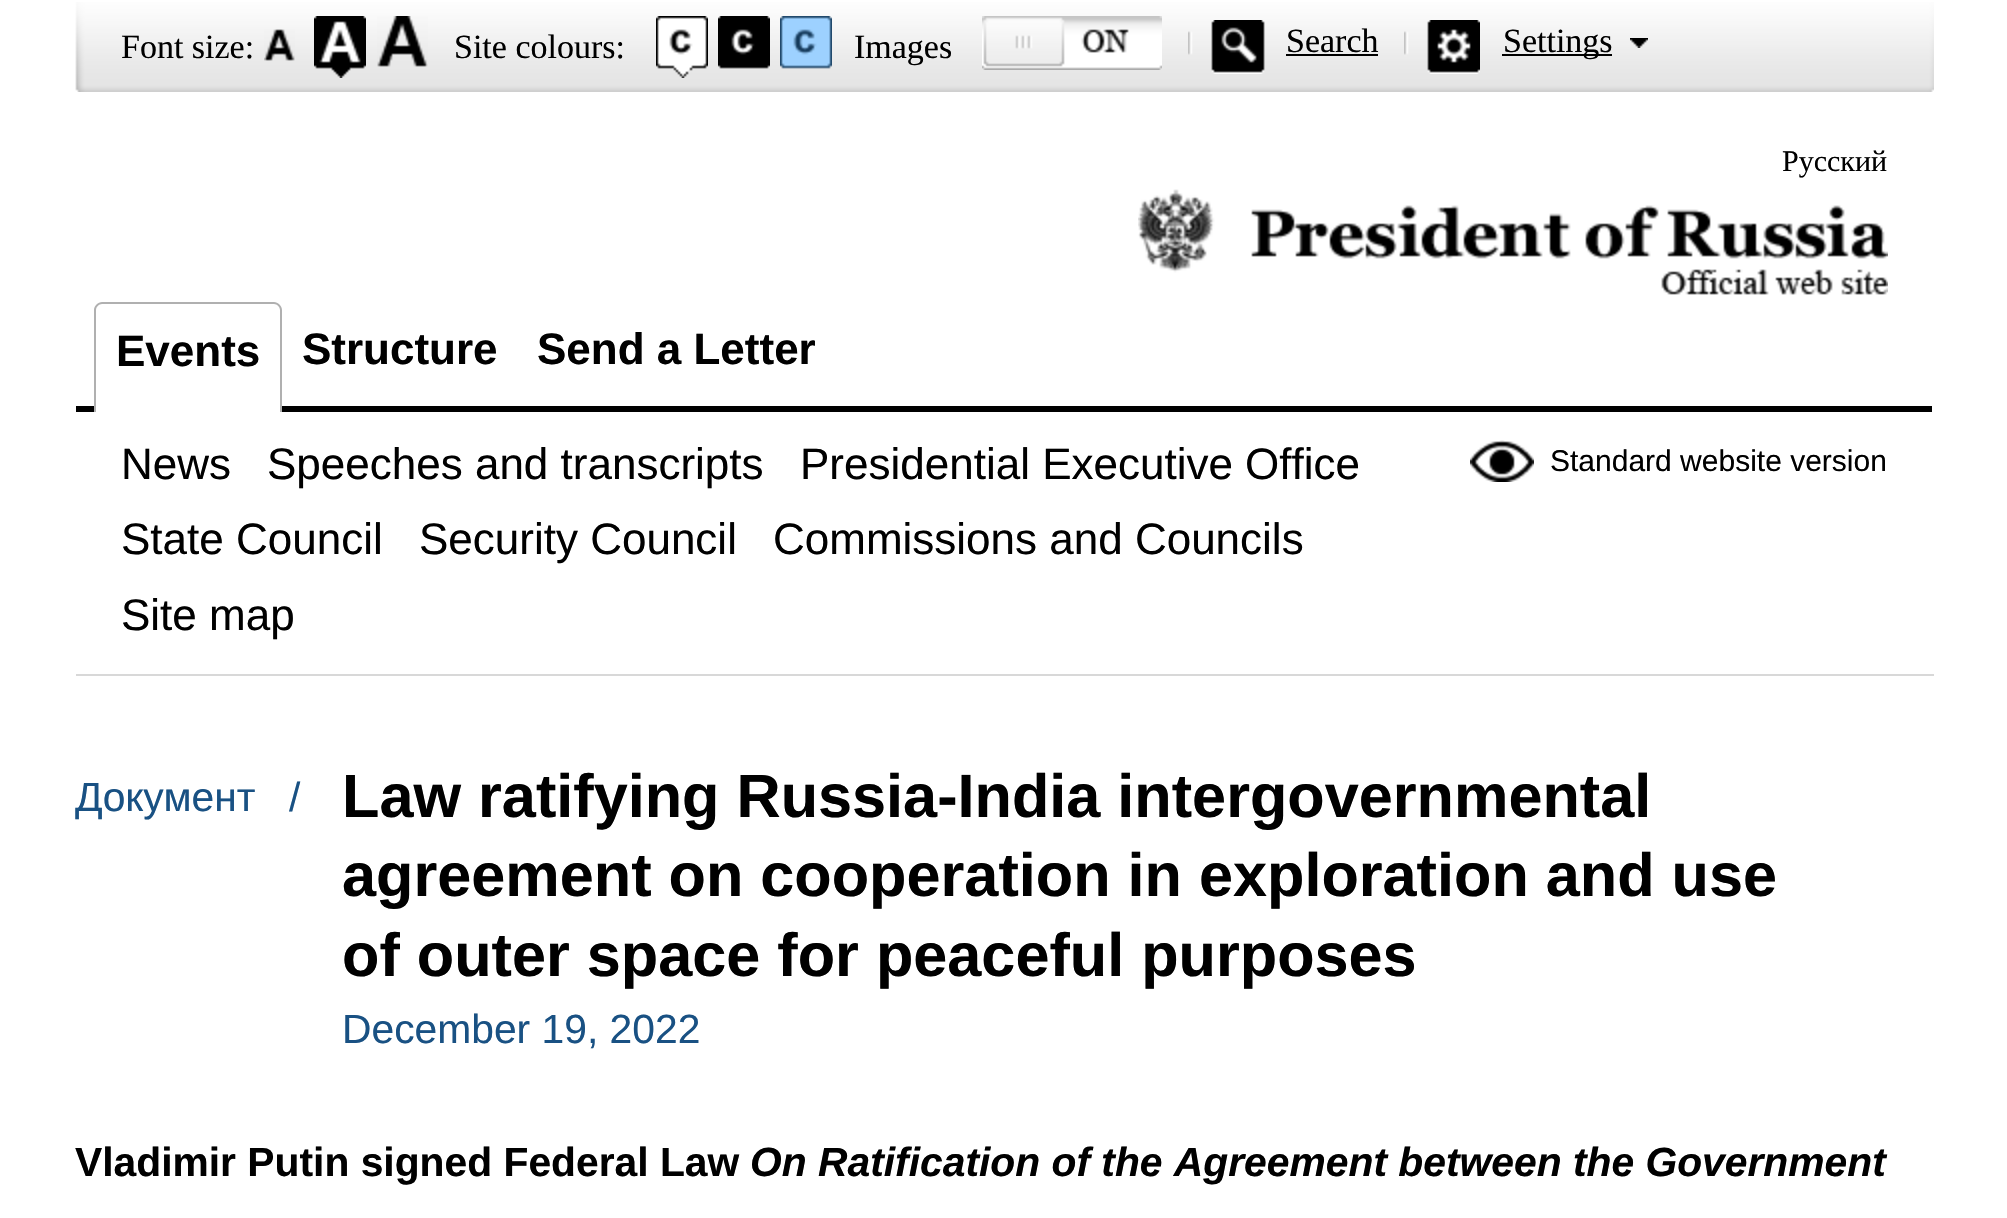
static SkFont makeFont(const char* family, int weight, float size, bool italic = false) {
  SkFontStyle style(weight, SkFontStyle::kNormal_Width,
    italic ? SkFontStyle::kItalic_Slant : SkFontStyle::kUpright_Slant);
  SkFont result(fontMgr->matchFamilyStyle(family, style), size);
  result.setSubpixel(true);
  return result;
}

static void text(SkCanvas* c, const char* s, float x, float y, const SkFont& font, SkColor color) {
  SkPaint ink(SkColor4f::FromColor(color));
  ink.setAntiAlias(true);
  c->drawString(s, x, y, font, ink);
}

static void box(SkCanvas* c, float l, float t, float r, float b, SkColor color) {
  SkPaint ink(SkColor4f::FromColor(color));
  ink.setAntiAlias(true);
  c->drawRect(SkRect::MakeLTRB(l, t, r, b), ink);
}

static void picture(SkCanvas* c, const char* path, float l, float t, float r, float b) {
  auto image = SkImages::DeferredFromEncodedData(SkData::MakeFromFileName(path));
  c->drawImageRect(image, SkRect::MakeLTRB(l, t, r, b), SkSamplingOptions());
}

void draw(SkCanvas* c) {
  SkPaint paint;
  paint.setAntiAlias(true);
  c->clear(0xffffffff);
  picture(c, "img_01.png", 75, 2, 1934, 92);
  SkFont face1 = makeFont("Liberation Serif", 400, 34);
  text(c, "Font size:", 121, 58, face1, 0xff000000);
  picture(c, "img_02.png", 264, 29, 295, 61);
  picture(c, "img_03.png", 314, 16, 366, 78);
  picture(c, "img_04.png", 377, 16, 428, 67);
  text(c, "Site colours:", 454, 58, face1, 0xff000000);
  picture(c, "img_05.png", 656, 16, 708, 78);
  picture(c, "img_06.png", 718, 16, 770, 69);
  picture(c, "img_07.png", 780, 16, 832, 69);
  text(c, "Images", 854, 58, face1, 0xff000000);
  picture(c, "img_08.png", 982, 16, 1162, 70);
  picture(c, "img_09.png", 1188, 20, 1265, 74);
  text(c, "Search", 1286, 52, face1, 0xff000000);
  box(c, 1286, 54, 1378, 56, 0xff000000);
  picture(c, "img_10.png", 1404, 20, 1480, 74);
  box(c, 1502, 54, 1612, 56, 0xff000000);
  text(c, "Settings", 1503, 52, face1, 0xff000000);
  picture(c, "img_11.png", 1630, 38, 1648, 48);
  SkFont face2 = makeFont("Liberation Serif", 400, 30);
  text(c, "Русский", 1782, 171, face2, 0xff000000);
  picture(c, "img_12.png", 1138, 189, 1888, 295);
  box(c, 76, 674, 1934, 676, 0xffd8d8d8);
  box(c, 76, 406, 1932, 412, 0xff000000);
  paint.setColor(0xffffffff);
  c->drawPath(SkPathBuilder().moveTo(102, 302).lineTo(274, 302).cubicTo(278.5f, 302, 282, 305.5f, 282, 310).lineTo(282, 412).lineTo(94, 412).lineTo(94, 310).cubicTo(94, 305.5f, 97.5f, 302, 102, 302).close().detach(), paint);
  paint.setColor(0xffb0b0b0);
  c->drawPath(SkPathBuilder(SkPathFillType::kEvenOdd).moveTo(102, 302).lineTo(274, 302).cubicTo(278, 302, 282, 306, 282, 310).lineTo(282, 412).lineTo(94, 412).lineTo(94, 310).cubicTo(94, 306, 98, 302, 102, 302).close().moveTo(102, 304).lineTo(274, 304).cubicTo(277, 304, 280, 307, 280, 310).lineTo(280, 412).lineTo(96, 412).lineTo(96, 310).cubicTo(96, 307, 99, 304, 102, 304).close().detach(), paint);
  SkFont face3 = makeFont("Liberation Sans", 700, 44);
  text(c, "Events", 116, 366, face3, 0xff000000);
  text(c, "Structure", 302, 364, face3, 0xff000000);
  text(c, "Send a Letter", 537, 364, face3, 0xff000000);
  SkFont face4 = makeFont("Liberation Sans", 400, 44);
  text(c, "News", 121, 479, face4, 0xff000000);
  text(c, "Speeches and transcripts", 267, 479, face4, 0xff000000);
  text(c, "Presidential Executive Office", 800, 479, face4, 0xff000000);
  text(c, "State Council", 121, 554, face4, 0xff000000);
  text(c, "Security Council", 419, 554, face4, 0xff000000);
  text(c, "Commissions and Councils", 773, 554, face4, 0xff000000);
  text(c, "Site map", 121, 630, face4, 0xff000000);
  picture(c, "img_13.png", 1470, 440, 1534, 482);
  SkFont face5 = makeFont("Liberation Sans", 400, 30);
  text(c, "Standard website version", 1550, 471, face5, 0xff000000);
  SkFont face6 = makeFont("Liberation Sans", 400, 40.8f);
  text(c, "Документ", 75, 811, face6, 0xff195183);
  text(c, "/", 289, 811, face6, 0xff195183);
  SkFont face7 = makeFont("Liberation Sans", 700, 61.2f);
  text(c, "Law ratifying Russia-India intergovernmental", 342, 817, face7, 0xff000000);
  text(c, "agreement on cooperation in exploration and use", 342, 896, face7, 0xff000000);
  text(c, "of outer space for peaceful purposes", 342, 976, face7, 0xff000000);
  text(c, "December 19, 2022", 342, 1043, face6, 0xff195183);
  SkFont face8 = makeFont("Liberation Sans", 700, 40.8f);
  text(c, "Vladimir Putin signed Federal Law", 75, 1176, face8, 0xff000000);
  SkFont face9 = makeFont("Liberation Sans", 700, 40.8f, true);
  text(c, "On Ratification of the Agreement between the Government", 750, 1176, face9, 0xff000000);
}
